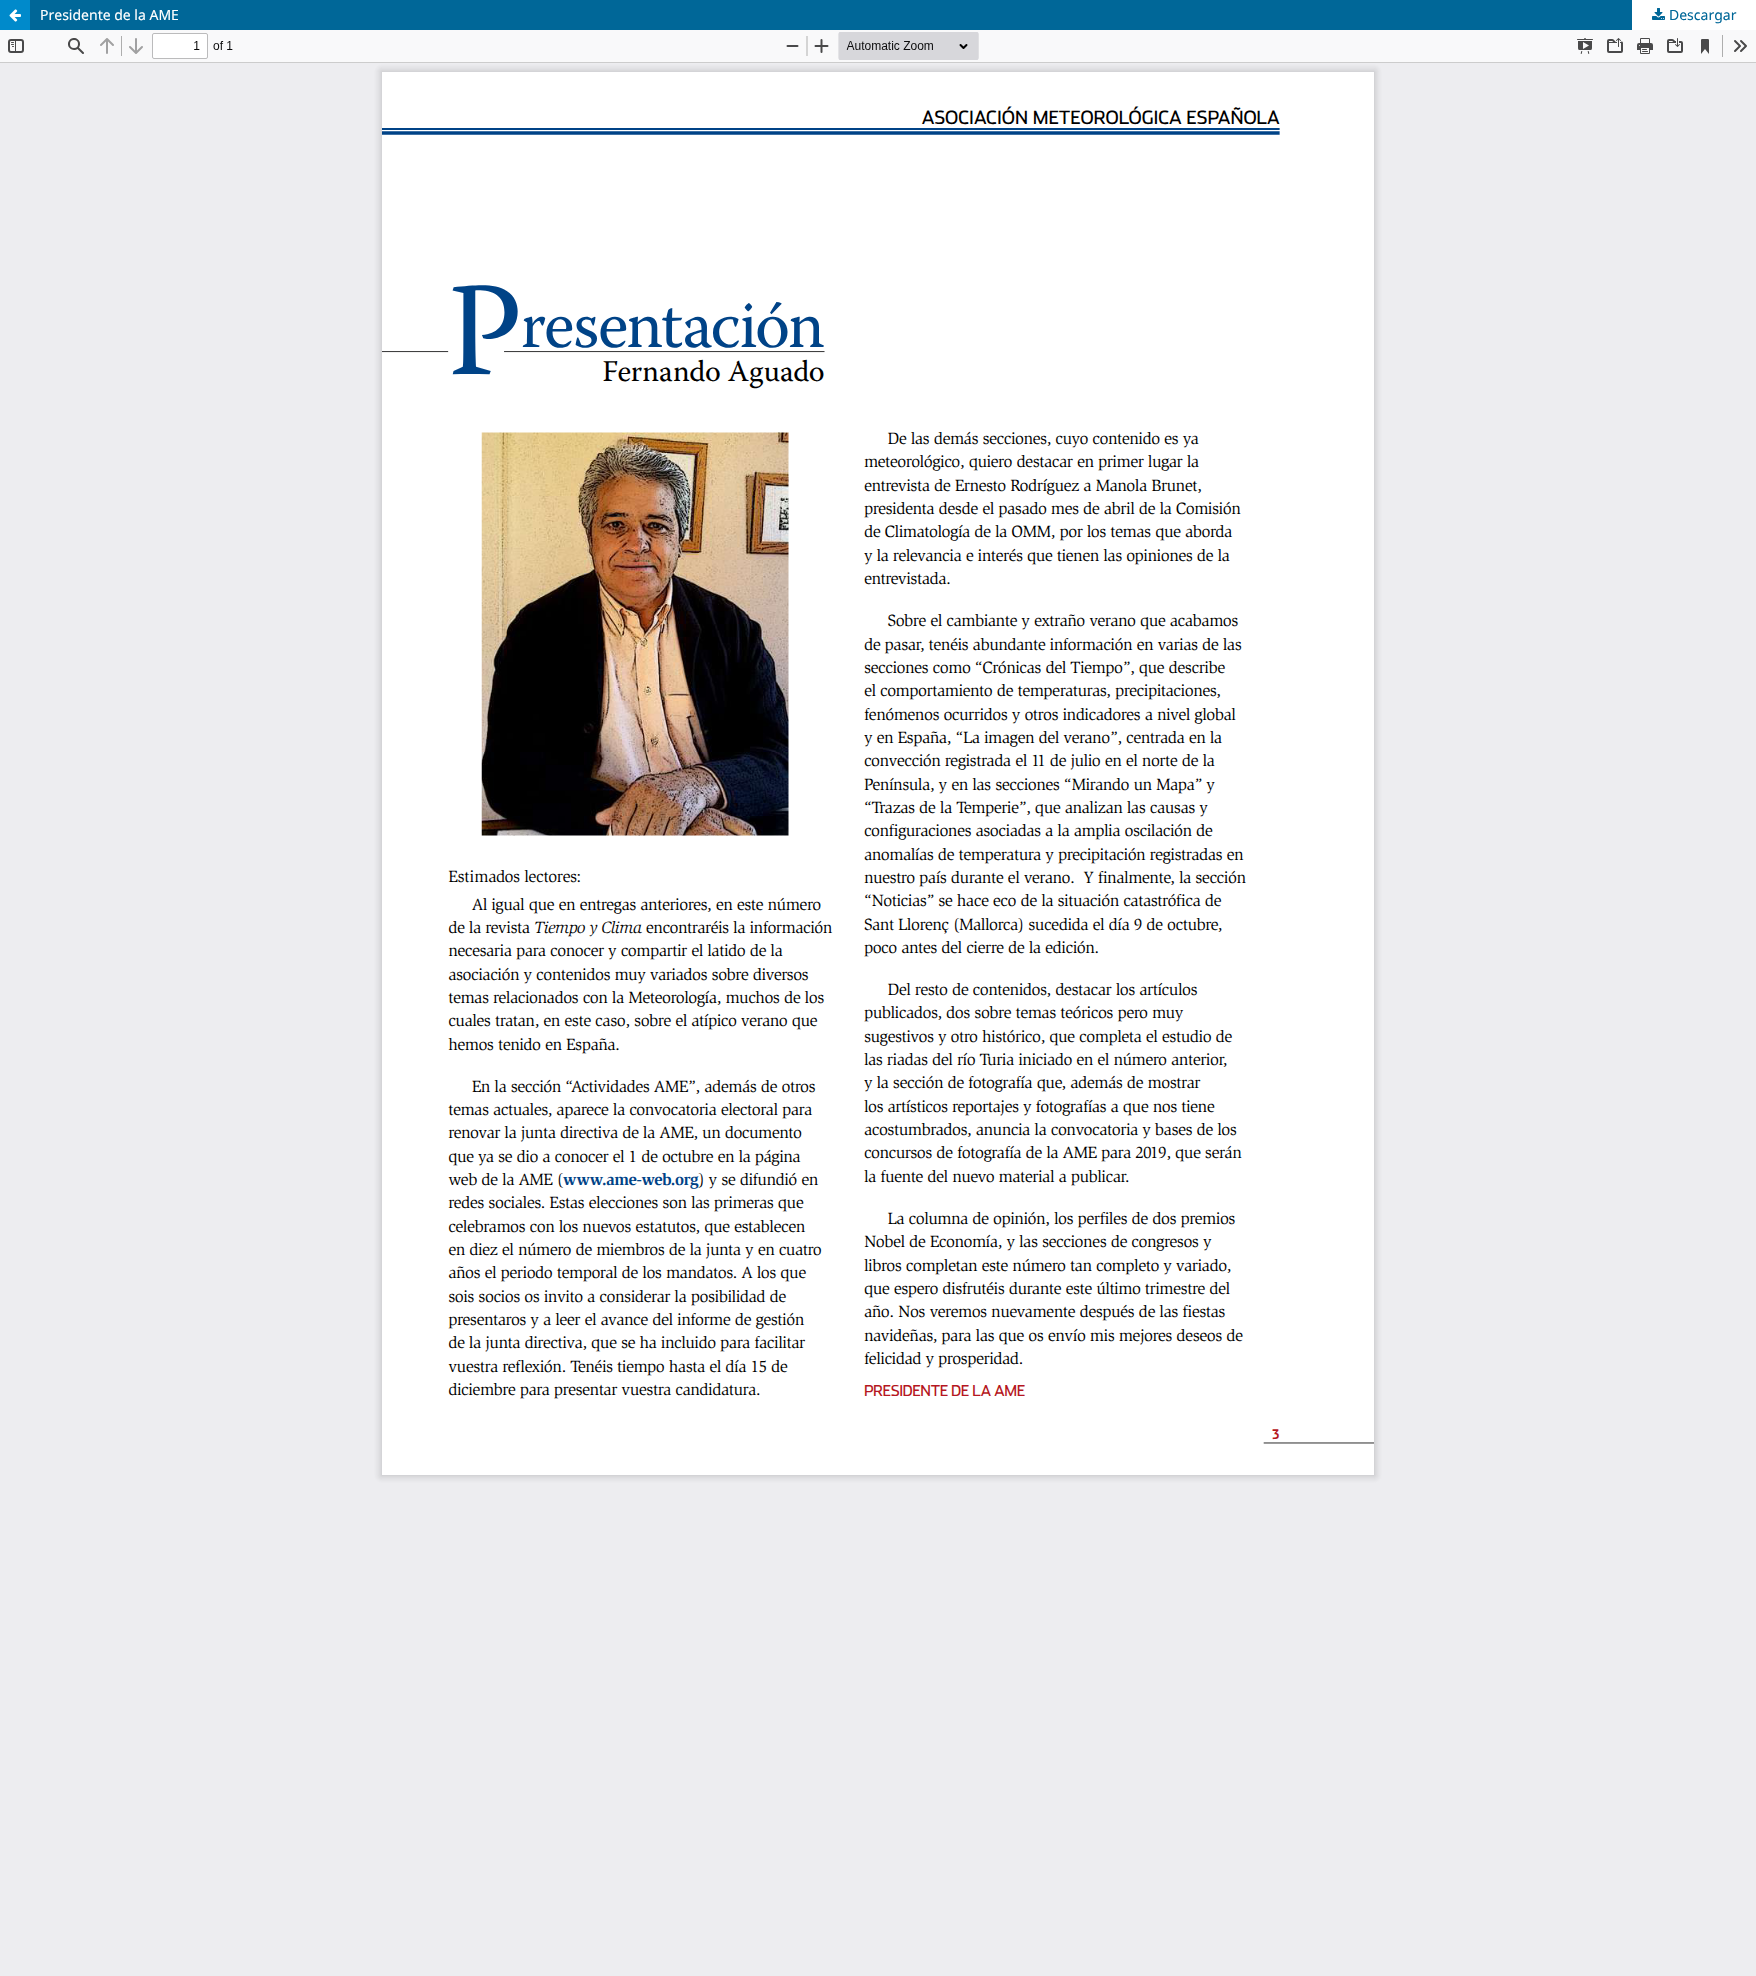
static SkFont makeFont(const char* family, int weight, float size, bool italic = false) {
  SkFontStyle style(weight, SkFontStyle::kNormal_Width,
    italic ? SkFontStyle::kItalic_Slant : SkFontStyle::kUpright_Slant);
  SkFont result(fontMgr->matchFamilyStyle(family, style), size);
  result.setSubpixel(true);
  return result;
}

static void text(SkCanvas* c, const char* s, float x, float y, const SkFont& font, SkColor color) {
  SkPaint ink(SkColor4f::FromColor(color));
  ink.setAntiAlias(true);
  c->drawString(s, x, y, font, ink);
}

static void box(SkCanvas* c, float l, float t, float r, float b, SkColor color) {
  SkPaint ink(SkColor4f::FromColor(color));
  ink.setAntiAlias(true);
  c->drawRect(SkRect::MakeLTRB(l, t, r, b), ink);
}

static void picture(SkCanvas* c, const char* path, float l, float t, float r, float b) {
  auto image = SkImages::DeferredFromEncodedData(SkData::MakeFromFileName(path));
  c->drawImageRect(image, SkRect::MakeLTRB(l, t, r, b), SkSamplingOptions());
}

void draw(SkCanvas* c) {
  SkPaint paint;
  paint.setAntiAlias(true);
  c->clear(0xffffffff);
  box(c, 30, 0, 1632, 30, 0xff006798);
  box(c, 0, 0, 30, 30, 0xff008acb);
  picture(c, "img_01.png", 9, 9, 21, 22);
  SkFont face1 = makeFont("Noto Sans", 400, 14);
  text(c, "Presidente de la AME", 40, 20, face1, 0xffffffff);
  picture(c, "img_02.png", 1652, 8, 1665, 20);
  text(c, "Descargar", 1669, 20, face1, 0xff006798);
  picture(c, "img_03.png", 0, 30, 1756, 1976);
}
